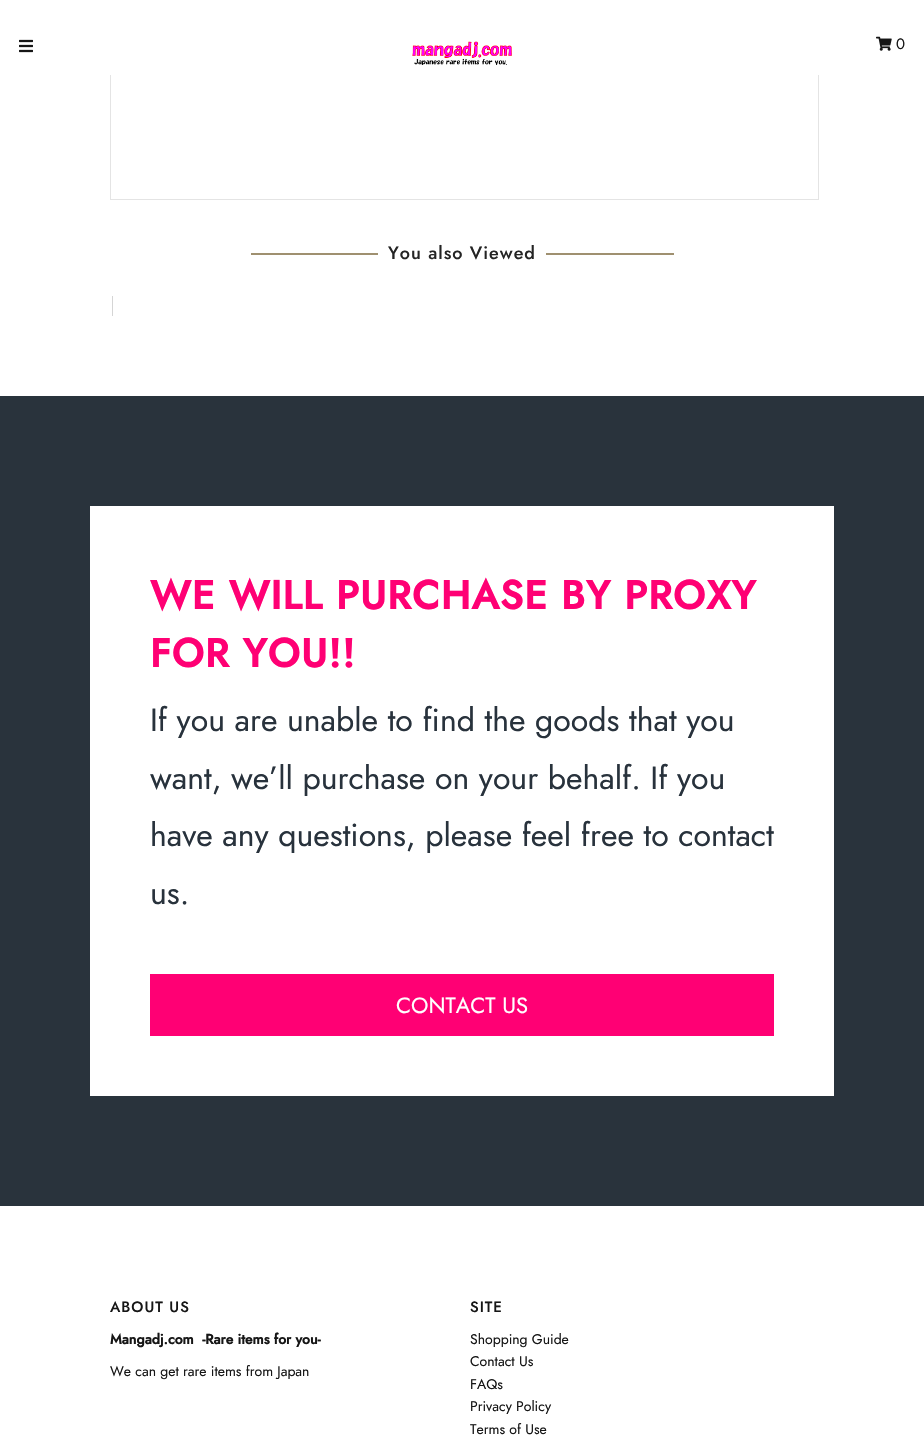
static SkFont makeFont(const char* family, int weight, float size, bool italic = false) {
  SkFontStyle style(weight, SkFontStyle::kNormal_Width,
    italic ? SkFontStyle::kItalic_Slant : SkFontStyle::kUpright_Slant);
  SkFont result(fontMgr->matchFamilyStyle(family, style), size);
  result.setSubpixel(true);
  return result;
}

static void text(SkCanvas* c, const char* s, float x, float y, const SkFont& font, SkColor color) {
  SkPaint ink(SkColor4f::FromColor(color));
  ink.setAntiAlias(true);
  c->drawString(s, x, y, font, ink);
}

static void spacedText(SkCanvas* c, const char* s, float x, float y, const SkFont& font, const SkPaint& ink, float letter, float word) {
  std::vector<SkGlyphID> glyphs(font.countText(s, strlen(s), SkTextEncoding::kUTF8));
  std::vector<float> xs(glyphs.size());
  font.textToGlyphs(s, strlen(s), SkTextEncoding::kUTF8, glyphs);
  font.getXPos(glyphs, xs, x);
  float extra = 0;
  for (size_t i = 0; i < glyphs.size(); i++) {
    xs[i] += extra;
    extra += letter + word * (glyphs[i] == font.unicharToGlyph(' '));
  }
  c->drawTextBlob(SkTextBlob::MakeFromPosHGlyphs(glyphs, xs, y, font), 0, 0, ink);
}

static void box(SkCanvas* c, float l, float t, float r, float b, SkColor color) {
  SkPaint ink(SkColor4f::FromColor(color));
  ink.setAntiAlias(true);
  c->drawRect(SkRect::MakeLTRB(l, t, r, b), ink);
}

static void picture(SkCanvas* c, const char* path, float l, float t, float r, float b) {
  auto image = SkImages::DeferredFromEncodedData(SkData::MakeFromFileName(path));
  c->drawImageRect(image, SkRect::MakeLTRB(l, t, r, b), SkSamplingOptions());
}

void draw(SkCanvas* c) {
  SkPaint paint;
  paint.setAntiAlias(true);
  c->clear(0xffffffff);
  paint.setStyle(SkPaint::kStroke_Style);
  paint.setStrokeWidth(1);
  paint.setColor(0xffe4e4e4);
  c->drawRect(SkRect::MakeLTRB(110.5f, 0.5f, 818.5f, 199.5f), paint);
  box(c, 110, 0, 819, 75, 0xffffffff);
  picture(c, "img_01.png", 19, 39, 33, 53);
  picture(c, "img_02.png", 412, 41, 512, 65);
  picture(c, "img_03.png", 876, 36, 892, 51);
  SkFont face1 = makeFont("Jost", 400, 15);
  text(c, "0", 896, 49, face1, 0xff161616);
  box(c, 251, 253, 674, 255, 0xff9f9070);
  box(c, 378, 253, 546, 255, 0xffffffff);
  SkFont face2 = makeFont("Jost", 500, 18);
  paint.setStyle(SkPaint::kFill_Style);
  paint.setColor(0xff242424);
  spacedText(c, "You also Viewed", 388, 259, face2, paint, 1, 0);
  box(c, 112, 296, 113, 316, 0xffd5d5d5);
  box(c, 0, 396, 924, 1206, 0xff29333c);
  box(c, 90, 506, 834, 1096, 0xffffffff);
  SkFont face3 = makeFont("Jost", 700, 40);
  paint.setColor(0xffff0074);
  spacedText(c, "WE WILL PURCHASE BY PROXY", 150, 609, face3, paint, 1, 0);
  spacedText(c, "FOR YOU!!", 150, 667, face3, paint, 1, 0);
  SkFont face4 = makeFont("Jost", 400, 32);
  text(c, "If you are unable to find the goods that you", 150, 731, face4, 0xff28323c);
  text(c, "want, we’ll purchase on your behalf. If you", 150, 789, face4, 0xff28323c);
  text(c, "have any questions, please feel free to contact", 150, 846, face4, 0xff28323c);
  text(c, "us.", 150, 904, face4, 0xff28323c);
  box(c, 150, 974, 774, 1036, 0xffff0074);
  SkFont face5 = makeFont("Jost", 400, 22);
  text(c, "CONTACT US", 396, 1013, face5, 0xffffffff);
  SkFont face6 = makeFont("Jost", 500, 15);
  paint.setColor(0xff161616);
  spacedText(c, "ABOUT US", 110, 1312, face6, paint, 1, 0);
  SkFont face7 = makeFont("Jost", 700, 14);
  text(c, "Mangadj.com  -Rare items for you-", 110, 1344, face7, 0xff161616);
  SkFont face8 = makeFont("Jost", 400, 14);
  text(c, "We can get rare items from Japan", 110, 1376, face8, 0xff161616);
  spacedText(c, "SITE", 470, 1312, face6, paint, 1, 0);
  text(c, "Shopping Guide", 470, 1344, face8, 0xff161616);
  text(c, "Contact Us", 470, 1366, face8, 0xff161616);
  text(c, "FAQs", 470, 1389, face8, 0xff161616);
  text(c, "Privacy Policy", 470, 1411, face8, 0xff161616);
  text(c, "Terms of Use", 470, 1434, face8, 0xff161616);
}
